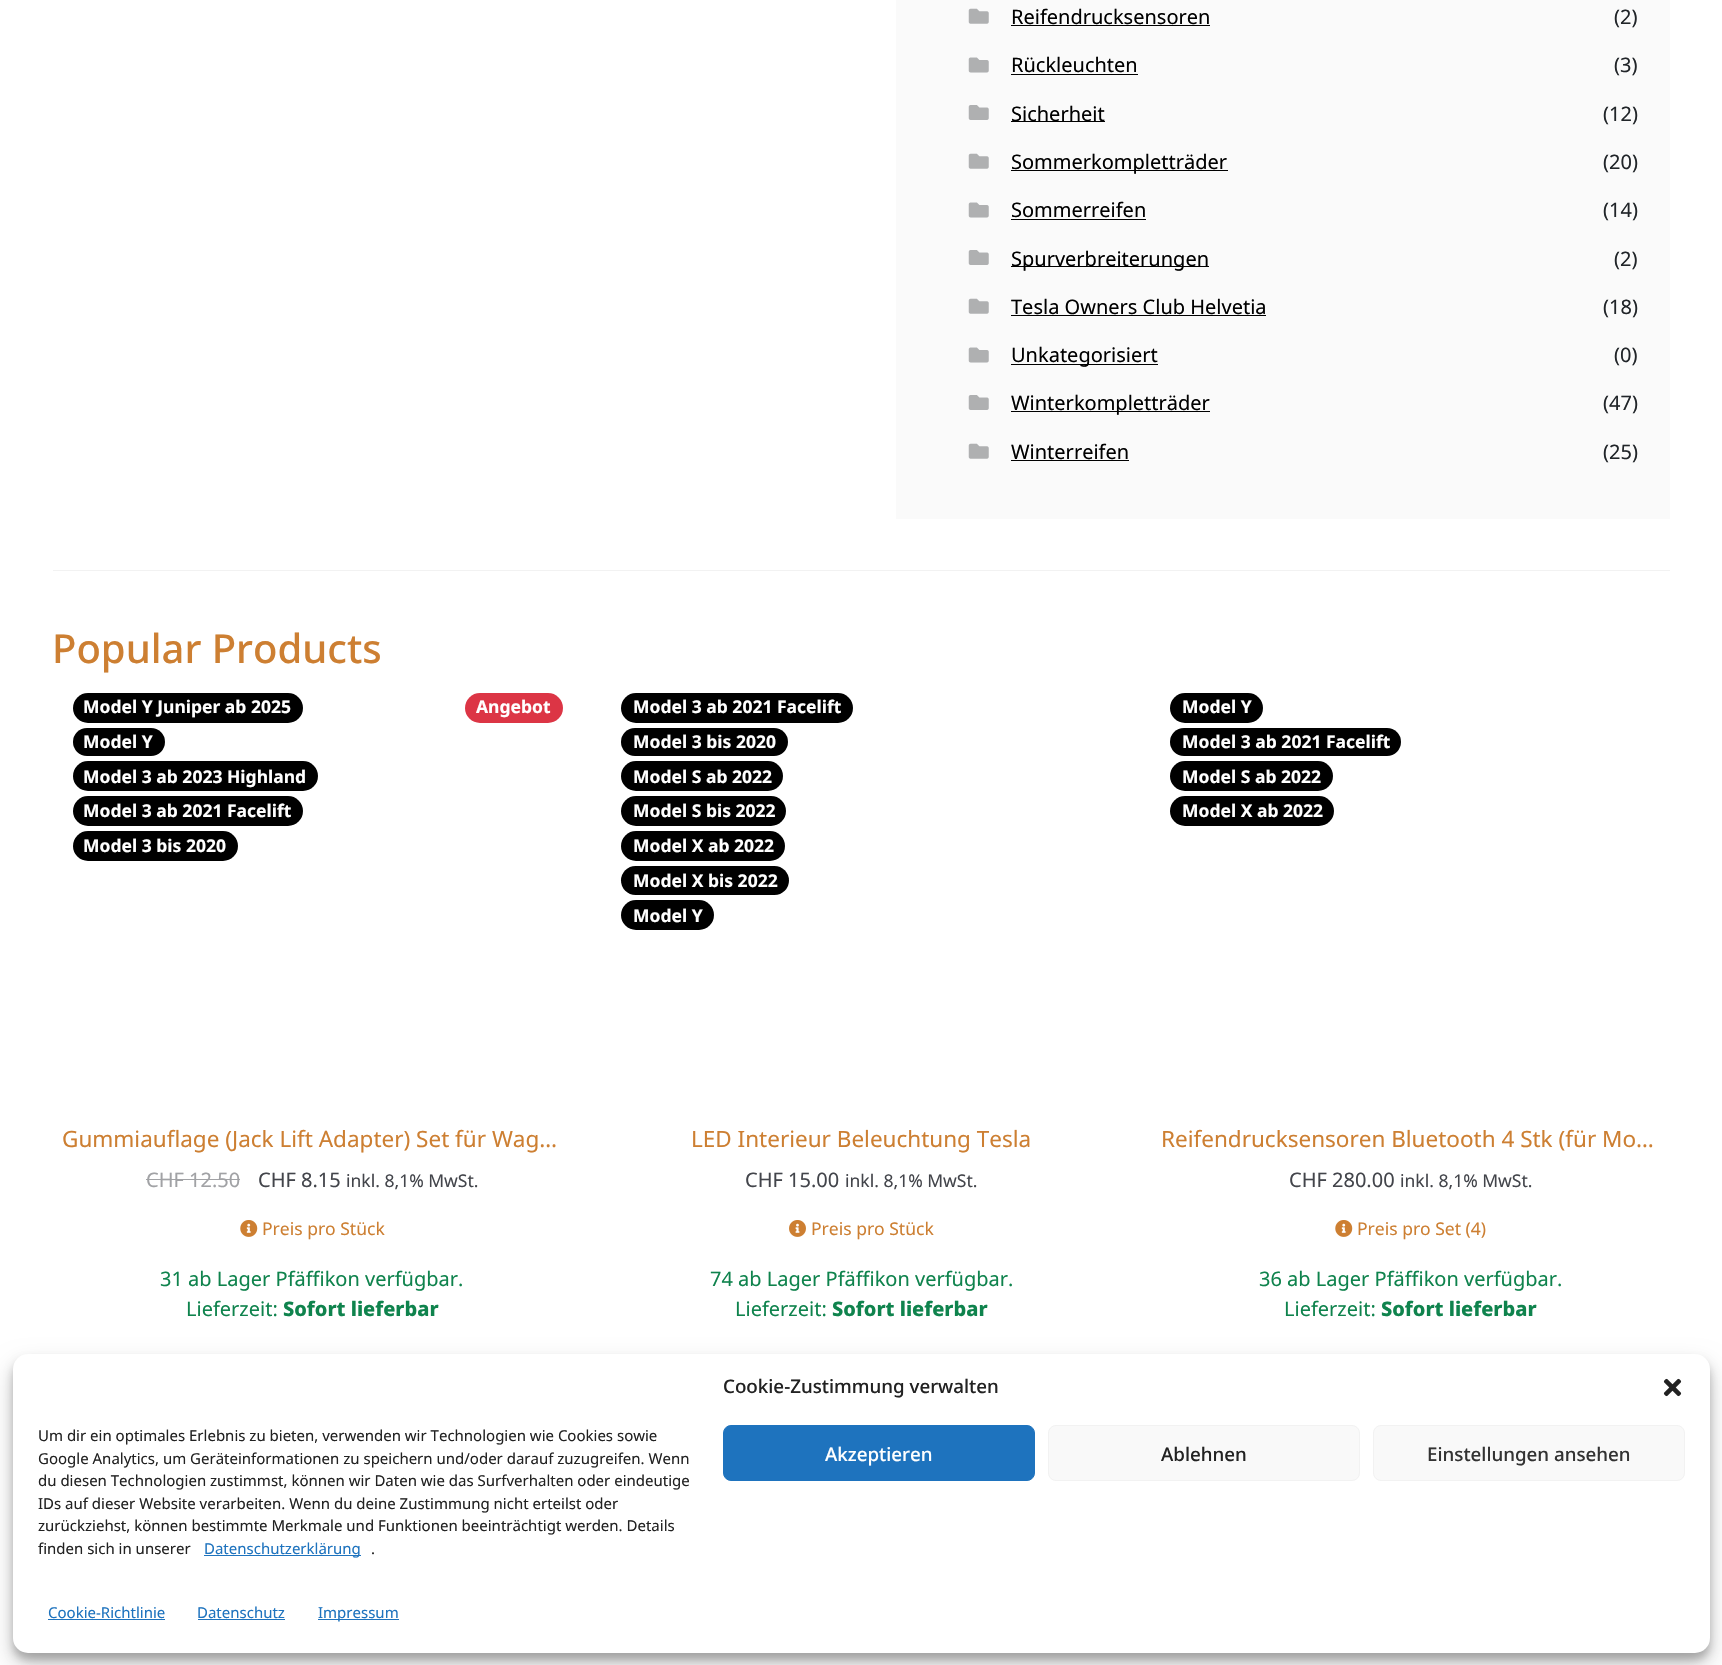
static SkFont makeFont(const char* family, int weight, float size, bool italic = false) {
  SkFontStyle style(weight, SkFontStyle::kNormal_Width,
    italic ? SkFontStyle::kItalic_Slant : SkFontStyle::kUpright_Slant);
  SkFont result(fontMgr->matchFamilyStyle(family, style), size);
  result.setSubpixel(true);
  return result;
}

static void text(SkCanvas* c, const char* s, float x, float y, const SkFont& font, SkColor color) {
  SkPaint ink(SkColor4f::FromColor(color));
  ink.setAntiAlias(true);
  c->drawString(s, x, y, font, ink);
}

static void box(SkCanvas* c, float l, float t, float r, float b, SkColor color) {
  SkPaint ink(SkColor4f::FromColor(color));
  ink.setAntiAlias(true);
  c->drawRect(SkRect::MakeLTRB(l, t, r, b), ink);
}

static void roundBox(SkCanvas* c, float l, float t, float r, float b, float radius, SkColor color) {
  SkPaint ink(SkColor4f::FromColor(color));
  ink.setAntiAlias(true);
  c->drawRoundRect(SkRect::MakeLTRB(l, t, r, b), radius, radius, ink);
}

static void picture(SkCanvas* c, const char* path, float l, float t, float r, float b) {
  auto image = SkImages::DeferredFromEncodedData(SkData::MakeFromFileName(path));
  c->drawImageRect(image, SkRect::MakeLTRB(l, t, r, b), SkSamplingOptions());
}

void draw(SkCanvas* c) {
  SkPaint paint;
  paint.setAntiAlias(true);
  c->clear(0xffffffff);
  box(c, 53, 570, 1670, 571, 0xfff2f2f2);
  box(c, 896, 0, 1670, 519, 0xfffafafa);
  picture(c, "img_01.png", 968, 8, 989, 24);
  SkFont face1 = makeFont("Noto Sans", 400, 20);
  text(c, "Reifendrucksensoren", 1011, 24, face1, 0xff000000);
  box(c, 1011, 25, 1210, 26, 0xff000000);
  text(c, "(2)", 1614, 24, face1, 0xff212529);
  picture(c, "img_02.png", 968, 57, 989, 73);
  text(c, "Rückleuchten", 1011, 72, face1, 0xff000000);
  box(c, 1011, 74, 1138, 75, 0xff000000);
  text(c, "(3)", 1614, 72, face1, 0xff212529);
  picture(c, "img_03.png", 968, 105, 989, 120);
  box(c, 1011, 121, 1105, 122, 0xff000000);
  text(c, "Sicherheit", 1011, 121, face1, 0xff000000);
  text(c, "(12)", 1603, 121, face1, 0xff212529);
  picture(c, "img_01.png", 968, 153, 989, 169);
  box(c, 1011, 170, 1228, 171, 0xff000000);
  text(c, "Sommerkompletträder", 1011, 169, face1, 0xff000000);
  text(c, "(20)", 1603, 169, face1, 0xff212529);
  picture(c, "img_02.png", 968, 202, 989, 218);
  text(c, "Sommerreifen", 1011, 217, face1, 0xff000000);
  box(c, 1011, 219, 1146, 220, 0xff000000);
  text(c, "(14)", 1603, 217, face1, 0xff212529);
  picture(c, "img_03.png", 968, 250, 989, 265);
  box(c, 1011, 266, 1209, 267, 0xff000000);
  text(c, "Spurverbreiterungen", 1011, 266, face1, 0xff000000);
  text(c, "(2)", 1614, 266, face1, 0xff212529);
  picture(c, "img_01.png", 968, 298, 989, 314);
  text(c, "Tesla Owners Club Helvetia", 1011, 314, face1, 0xff000000);
  box(c, 1011, 315, 1266, 316, 0xff000000);
  text(c, "(18)", 1603, 314, face1, 0xff212529);
  picture(c, "img_02.png", 968, 347, 989, 363);
  box(c, 1011, 364, 1158, 365, 0xff000000);
  text(c, "Unkategorisiert", 1011, 362, face1, 0xff000000);
  text(c, "(0)", 1614, 362, face1, 0xff212529);
  picture(c, "img_03.png", 968, 395, 989, 410);
  box(c, 1011, 411, 1210, 412, 0xff000000);
  text(c, "Winterkompletträder", 1011, 410, face1, 0xff000000);
  text(c, "(47)", 1603, 410, face1, 0xff212529);
  picture(c, "img_01.png", 968, 443, 989, 459);
  text(c, "Winterreifen", 1011, 459, face1, 0xff000000);
  box(c, 1011, 460, 1129, 461, 0xff000000);
  text(c, "(25)", 1603, 459, face1, 0xff212529);
  SkFont face2 = makeFont("Noto Sans", 500, 40);
  text(c, "Popular Products", 52, 663, face2, 0xffcd7f32);
  roundBox(c, 73, 693, 303, 723, 15, 0xff000000);
  SkFont face3 = makeFont("Noto Sans", 700, 17.5f);
  text(c, "Model Y Juniper ab 2025", 83, 713, face3, 0xffffffff);
  roundBox(c, 73, 728, 165, 756, 14, 0xff000000);
  text(c, "Model Y", 83, 748, face3, 0xffffffff);
  roundBox(c, 73, 761, 318, 791, 15, 0xff000000);
  text(c, "Model 3 ab 2023 Highland", 83, 783, face3, 0xffffffff);
  roundBox(c, 73, 796, 303, 826, 15, 0xff000000);
  text(c, "Model 3 ab 2021 Facelift", 83, 817, face3, 0xffffffff);
  roundBox(c, 73, 831, 238, 861, 15, 0xff000000);
  text(c, "Model 3 bis 2020", 83, 852, face3, 0xffffffff);
  roundBox(c, 465, 693, 563, 723, 15, 0xffdc3545);
  text(c, "Angebot", 476, 713, face3, 0xffffffff);
  SkFont face4 = makeFont("Noto Sans", 400, 22.5f);
  text(c, "Gummiauflage (Jack Lift Adapter) Set für Wag…", 62, 1147, face4, 0xffcd7f32);
  text(c, "CHF 12.50", 146, 1187, face1, 0xffa1a2a5);
  box(c, 146, 1179, 240, 1180, 0xffa1a2a5);
  text(c, "CHF 8.15", 258, 1187, face1, 0xff43454b);
  SkFont face5 = makeFont("Noto Sans", 400, 17.5f);
  text(c, "inkl. 8,1% MwSt.", 346, 1187, face5, 0xff43454b);
  picture(c, "img_04.png", 240, 1220, 258, 1237);
  text(c, "Preis pro Stück", 262, 1235, face5, 0xffcd7f32);
  text(c, "31 ab Lager Pfäffikon verfügbar.", 160, 1286, face1, 0xff0f834d);
  text(c, "Lieferzeit:", 186, 1316, face1, 0xff0f834d);
  SkFont face6 = makeFont("Noto Sans", 800, 20);
  text(c, "Sofort lieferbar", 283, 1316, face6, 0xff0f834d);
  roundBox(c, 621, 693, 853, 723, 15, 0xff000000);
  text(c, "Model 3 ab 2021 Facelift", 633, 713, face3, 0xffffffff);
  roundBox(c, 621, 728, 788, 756, 14, 0xff000000);
  text(c, "Model 3 bis 2020", 633, 748, face3, 0xffffffff);
  roundBox(c, 621, 761, 783, 791, 15, 0xff000000);
  text(c, "Model S ab 2022", 633, 783, face3, 0xffffffff);
  roundBox(c, 621, 796, 786, 826, 15, 0xff000000);
  text(c, "Model S bis 2022", 633, 817, face3, 0xffffffff);
  roundBox(c, 621, 831, 785, 861, 15, 0xff000000);
  text(c, "Model X ab 2022", 633, 852, face3, 0xffffffff);
  roundBox(c, 621, 866, 789, 895, 14.5f, 0xff000000);
  text(c, "Model X bis 2022", 633, 887, face3, 0xffffffff);
  roundBox(c, 621, 900, 714, 930, 15, 0xff000000);
  text(c, "Model Y", 633, 922, face3, 0xffffffff);
  text(c, "LED Interieur Beleuchtung Tesla", 691, 1147, face4, 0xffcd7f32);
  text(c, "CHF 15.00", 745, 1187, face1, 0xff43454b);
  text(c, "inkl. 8,1% MwSt.", 845, 1187, face5, 0xff43454b);
  picture(c, "img_05.png", 789, 1220, 806, 1237);
  text(c, "Preis pro Stück", 811, 1235, face5, 0xffcd7f32);
  text(c, "74 ab Lager Pfäffikon verfügbar.", 710, 1286, face1, 0xff0f834d);
  text(c, "Lieferzeit:", 735, 1316, face1, 0xff0f834d);
  text(c, "Sofort lieferbar", 832, 1316, face6, 0xff0f834d);
  roundBox(c, 1170, 693, 1263, 723, 15, 0xff000000);
  text(c, "Model Y", 1182, 713, face3, 0xffffffff);
  roundBox(c, 1170, 728, 1401, 756, 14, 0xff000000);
  text(c, "Model 3 ab 2021 Facelift", 1182, 748, face3, 0xffffffff);
  roundBox(c, 1170, 761, 1333, 791, 15, 0xff000000);
  text(c, "Model S ab 2022", 1182, 783, face3, 0xffffffff);
  roundBox(c, 1170, 796, 1334, 826, 15, 0xff000000);
  text(c, "Model X ab 2022", 1182, 817, face3, 0xffffffff);
  text(c, "Reifendrucksensoren Bluetooth 4 Stk (für Mo…", 1161, 1147, face4, 0xffcd7f32);
  text(c, "CHF 280.00", 1289, 1187, face1, 0xff43454b);
  text(c, "inkl. 8,1% MwSt.", 1400, 1187, face5, 0xff43454b);
  picture(c, "img_04.png", 1335, 1220, 1353, 1237);
  text(c, "Preis pro Set (4)", 1357, 1235, face5, 0xffcd7f32);
  text(c, "36 ab Lager Pfäffikon verfügbar.", 1259, 1286, face1, 0xff0f834d);
  text(c, "Lieferzeit:", 1284, 1316, face1, 0xff0f834d);
  text(c, "Sofort lieferbar", 1381, 1316, face6, 0xff0f834d);
  paint.setColor(0x3b000000);
  paint.setMaskFilter(SkMaskFilter::MakeBlur(kNormal_SkBlurStyle, 4));
  c->drawRoundRect(SkRect::MakeLTRB(13, 1361, 1710, 1660), 15, 15, paint);
  paint.setMaskFilter(nullptr);
  paint.setColor(0x30000000);
  paint.setMaskFilter(SkMaskFilter::MakeBlur(kNormal_SkBlurStyle, 12.5f));
  c->drawRoundRect(SkRect::MakeLTRB(13, 1366, 1710, 1665), 15, 15, paint);
  paint.setMaskFilter(nullptr);
  roundBox(c, 13, 1354, 1710, 1653, 15, 0xffffffff);
  SkFont face7 = makeFont("Noto Sans", 500, 18.75f);
  text(c, "Cookie-Zustimmung verwalten", 723, 1393, face7, 0xff222222);
  picture(c, "img_06.png", 1663, 1378, 1682, 1397);
  SkFont face8 = makeFont("Noto Sans", 400, 15);
  text(c, "Um dir ein optimales Erlebnis zu bieten, verwenden wir Technologien wie Cookies sowie", 38, 1441, face8, 0xff222222);
  text(c, "Google Analytics, um Geräteinformationen zu speichern und/oder darauf zuzugreifen. Wenn", 38, 1464, face8, 0xff222222);
  text(c, "du diesen Technologien zustimmst, können wir Daten wie das Surfverhalten oder eindeutige", 38, 1486, face8, 0xff222222);
  text(c, "IDs auf dieser Website verarbeiten. Wenn du deine Zustimmung nicht erteilst oder", 38, 1509, face8, 0xff222222);
  text(c, "zurückziehst, können bestimmte Merkmale und Funktionen beeinträchtigt werden. Details", 38, 1531, face8, 0xff222222);
  text(c, "finden sich in unserer", 38, 1554, face8, 0xff222222);
  box(c, 204, 1555, 361, 1556, 0xff1e73be);
  text(c, "Datenschutzerklärung", 204, 1554, face8, 0xff1e73be);
  text(c, ".", 371, 1554, face8, 0xff222222);
  paint.setColor(0xff1e73be);
  c->drawRoundRect(SkRect::MakeLTRB(723.5f, 1425.5f, 1034.5f, 1480.5f), 7.5f, 7.5f, paint);
  paint.setStyle(SkPaint::kStroke_Style);
  paint.setStrokeWidth(1);
  c->drawRoundRect(SkRect::MakeLTRB(723.5f, 1425.5f, 1034.5f, 1480.5f), 7.5f, 7.5f, paint);
  text(c, "Akzeptieren", 825, 1461, face7, 0xffffffff);
  paint.setStyle(SkPaint::kFill_Style);
  paint.setColor(0xfff9f9f9);
  c->drawRoundRect(SkRect::MakeLTRB(1048.5f, 1425.5f, 1359.5f, 1480.5f), 7.5f, 7.5f, paint);
  paint.setStyle(SkPaint::kStroke_Style);
  paint.setColor(0xfff2f2f2);
  c->drawRoundRect(SkRect::MakeLTRB(1048.5f, 1425.5f, 1359.5f, 1480.5f), 7.5f, 7.5f, paint);
  text(c, "Ablehnen", 1161, 1461, face7, 0xff222222);
  paint.setStyle(SkPaint::kFill_Style);
  paint.setColor(0xfff9f9f9);
  c->drawRoundRect(SkRect::MakeLTRB(1373.5f, 1425.5f, 1684.5f, 1480.5f), 7.5f, 7.5f, paint);
  paint.setStyle(SkPaint::kStroke_Style);
  paint.setColor(0xfff2f2f2);
  c->drawRoundRect(SkRect::MakeLTRB(1373.5f, 1425.5f, 1684.5f, 1480.5f), 7.5f, 7.5f, paint);
  text(c, "Einstellungen ansehen", 1427, 1461, face7, 0xff333333);
  text(c, "Cookie-Richtlinie", 48, 1618, face8, 0xff1e73be);
  box(c, 48, 1619, 165, 1620, 0xff1e73be);
  text(c, "Datenschutz", 197, 1618, face8, 0xff1e73be);
  box(c, 198, 1619, 285, 1620, 0xff1e73be);
  box(c, 318, 1619, 399, 1620, 0xff1e73be);
  text(c, "Impressum", 318, 1618, face8, 0xff1e73be);
}
